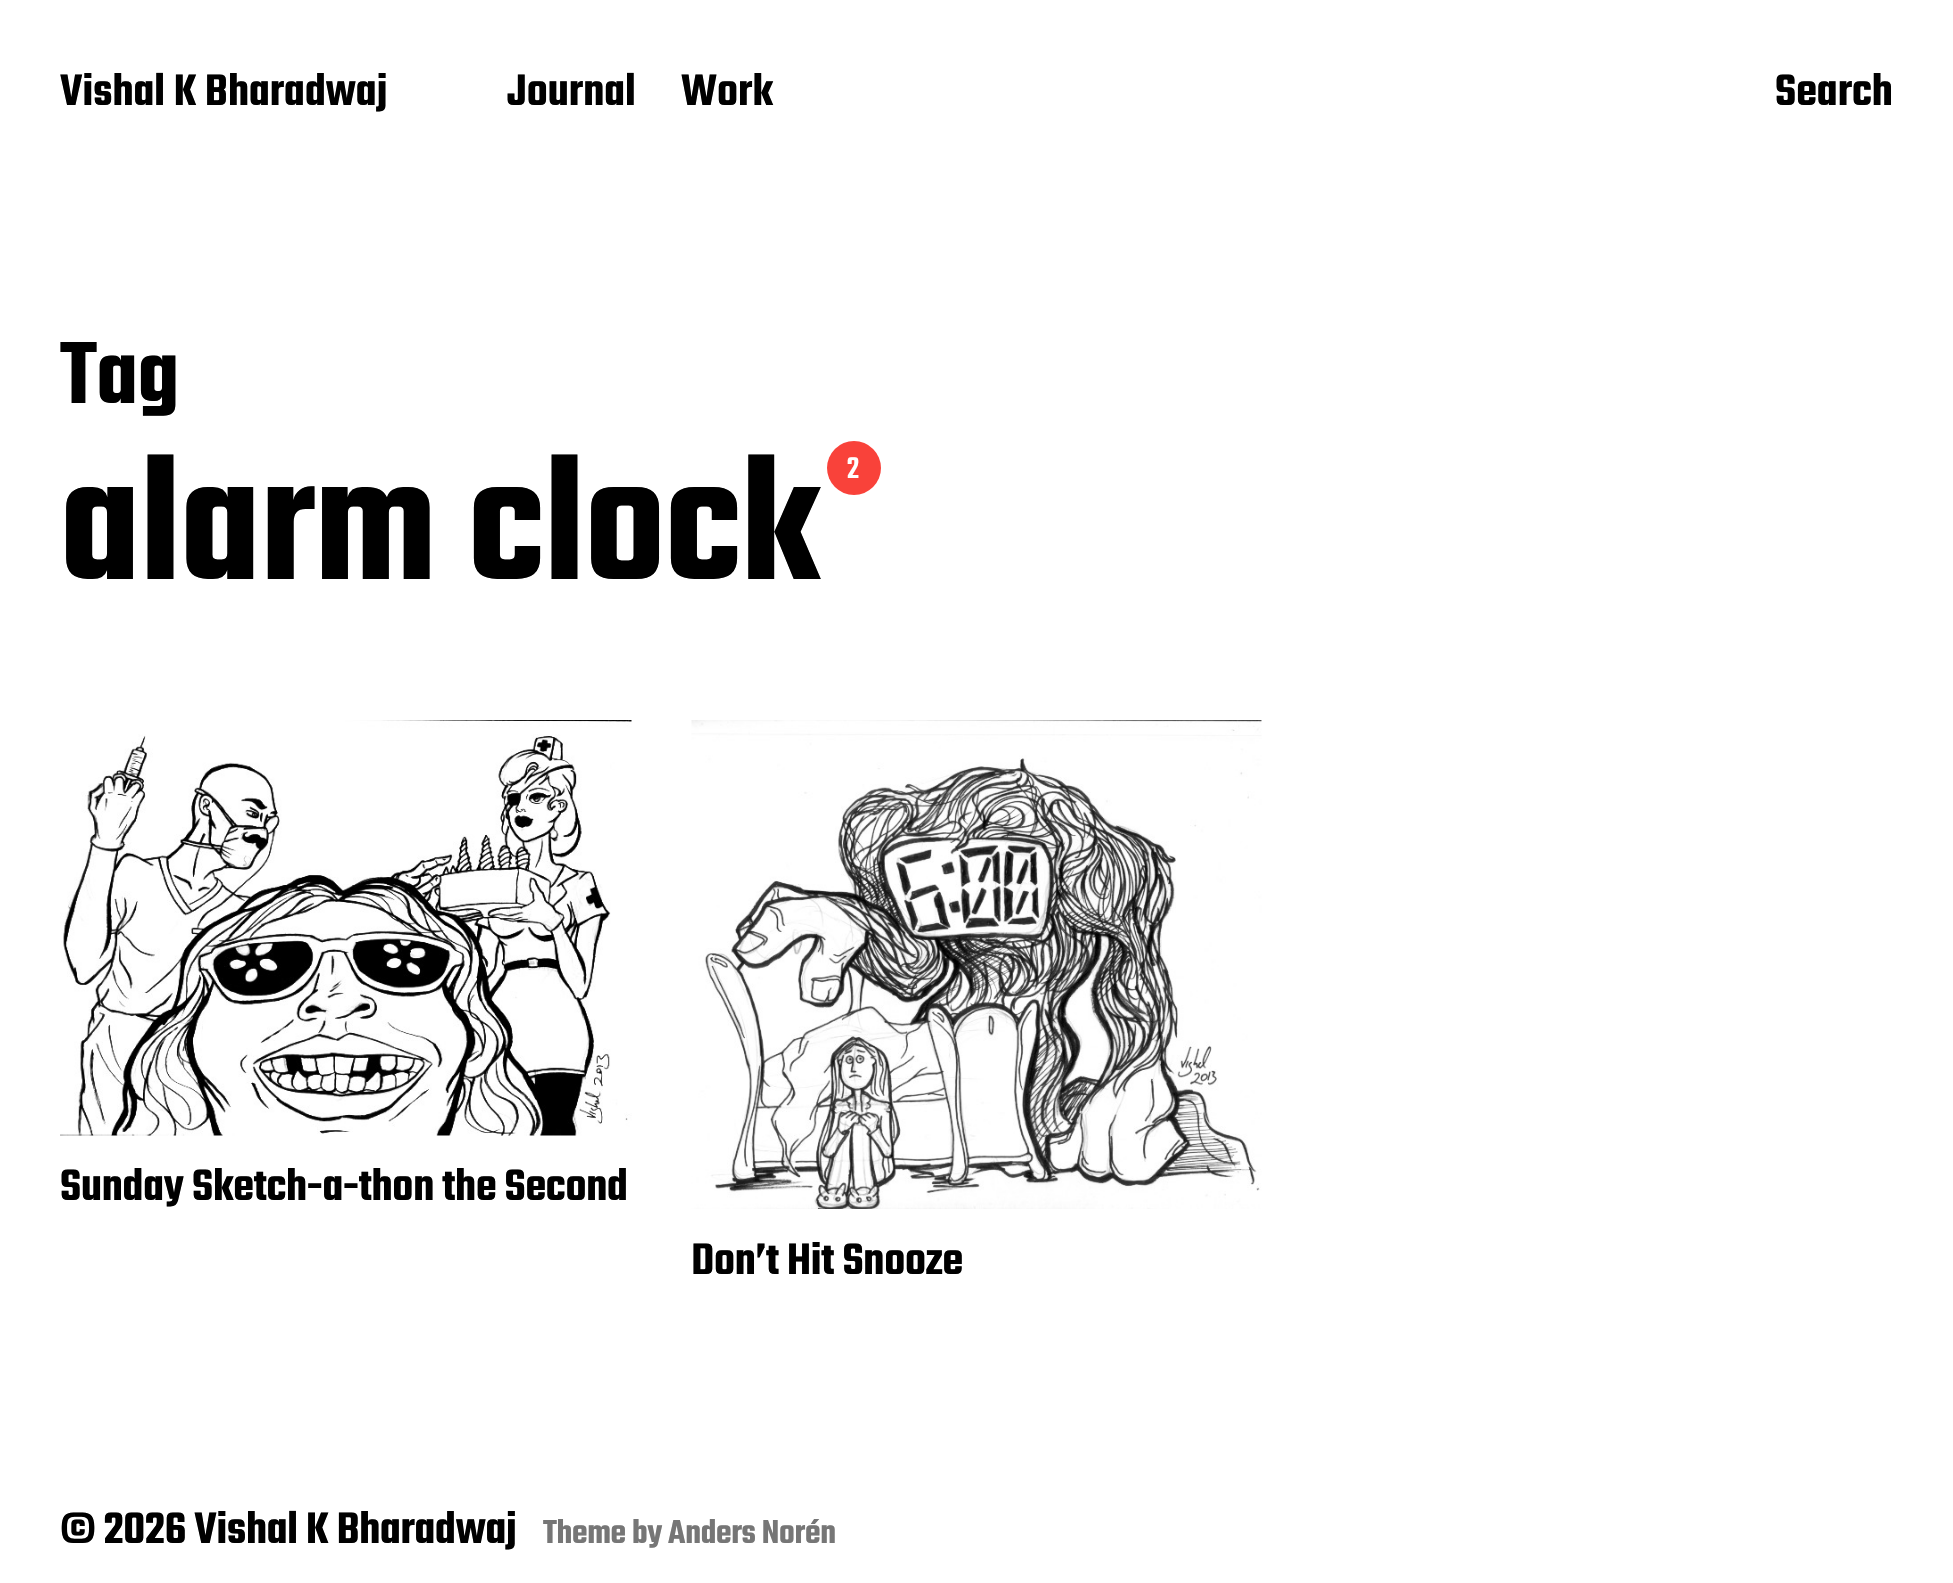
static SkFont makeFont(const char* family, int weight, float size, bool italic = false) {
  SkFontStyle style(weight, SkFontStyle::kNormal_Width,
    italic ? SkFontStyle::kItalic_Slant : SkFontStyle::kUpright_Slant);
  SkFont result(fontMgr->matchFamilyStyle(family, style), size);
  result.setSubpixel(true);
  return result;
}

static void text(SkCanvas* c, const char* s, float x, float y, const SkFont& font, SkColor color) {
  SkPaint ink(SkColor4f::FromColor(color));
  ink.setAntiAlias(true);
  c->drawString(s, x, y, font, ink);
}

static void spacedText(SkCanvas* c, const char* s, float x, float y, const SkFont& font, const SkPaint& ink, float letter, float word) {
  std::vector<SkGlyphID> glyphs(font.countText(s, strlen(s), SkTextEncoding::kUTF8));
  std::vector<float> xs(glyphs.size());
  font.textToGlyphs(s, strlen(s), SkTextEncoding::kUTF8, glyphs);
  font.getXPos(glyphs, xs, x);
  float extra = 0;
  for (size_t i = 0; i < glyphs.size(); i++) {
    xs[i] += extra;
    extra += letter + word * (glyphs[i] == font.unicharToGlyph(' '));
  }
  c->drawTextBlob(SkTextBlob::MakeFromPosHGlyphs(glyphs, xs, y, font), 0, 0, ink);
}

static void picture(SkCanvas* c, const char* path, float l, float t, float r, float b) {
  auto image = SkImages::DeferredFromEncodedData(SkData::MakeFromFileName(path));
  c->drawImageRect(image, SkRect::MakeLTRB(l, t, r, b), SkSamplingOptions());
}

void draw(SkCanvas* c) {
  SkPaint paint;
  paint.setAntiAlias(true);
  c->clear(0xffffffff);
  SkFont face1 = makeFont("Teko", 600, 48);
  text(c, "Vishal K Bharadwaj", 60, 105, face1, 0xff000000);
  text(c, "Journal", 507, 105, face1, 0xff000000);
  text(c, "Work", 681, 105, face1, 0xff000000);
  text(c, "Search", 1775, 105, face1, 0xff000000);
  SkFont face2 = makeFont("Teko", 600, 96);
  paint.setColor(0xff000000);
  spacedText(c, "Tag", 60, 403, face2, paint, -0.5f, 0);
  SkFont face3 = makeFont("Teko", 600, 186);
  spacedText(c, "alarm clock", 60, 579, face3, paint, -1, 0);
  paint.setColor(0xfff9423a);
  c->drawCircle(854, 468, 27, paint);
  SkFont face4 = makeFont("Teko", 500, 33);
  paint.setColor(0xffffffff);
  spacedText(c, "2", 847, 478, face4, paint, -1, 0);
  picture(c, "img_01.png", 60, 720, 632, 1136);
  paint.setColor(0xff000000);
  spacedText(c, "Sunday Sketch-a-thon the Second", 60, 1200, face1, paint, -0.25f, 0);
  picture(c, "img_02.png", 691, 720, 1262, 1209);
  spacedText(c, "Don’t Hit Snooze", 691, 1274, face1, paint, -0.25f, 0);
  spacedText(c, "© 2026 Vishal K Bharadwaj", 60, 1543, face1, paint, -0.3f, 0);
  SkFont face5 = makeFont("Teko", 600, 36);
  paint.setColor(0xff767676);
  spacedText(c, "Theme by Anders Norén", 543, 1543, face5, paint, -0.3f, 0);
}
